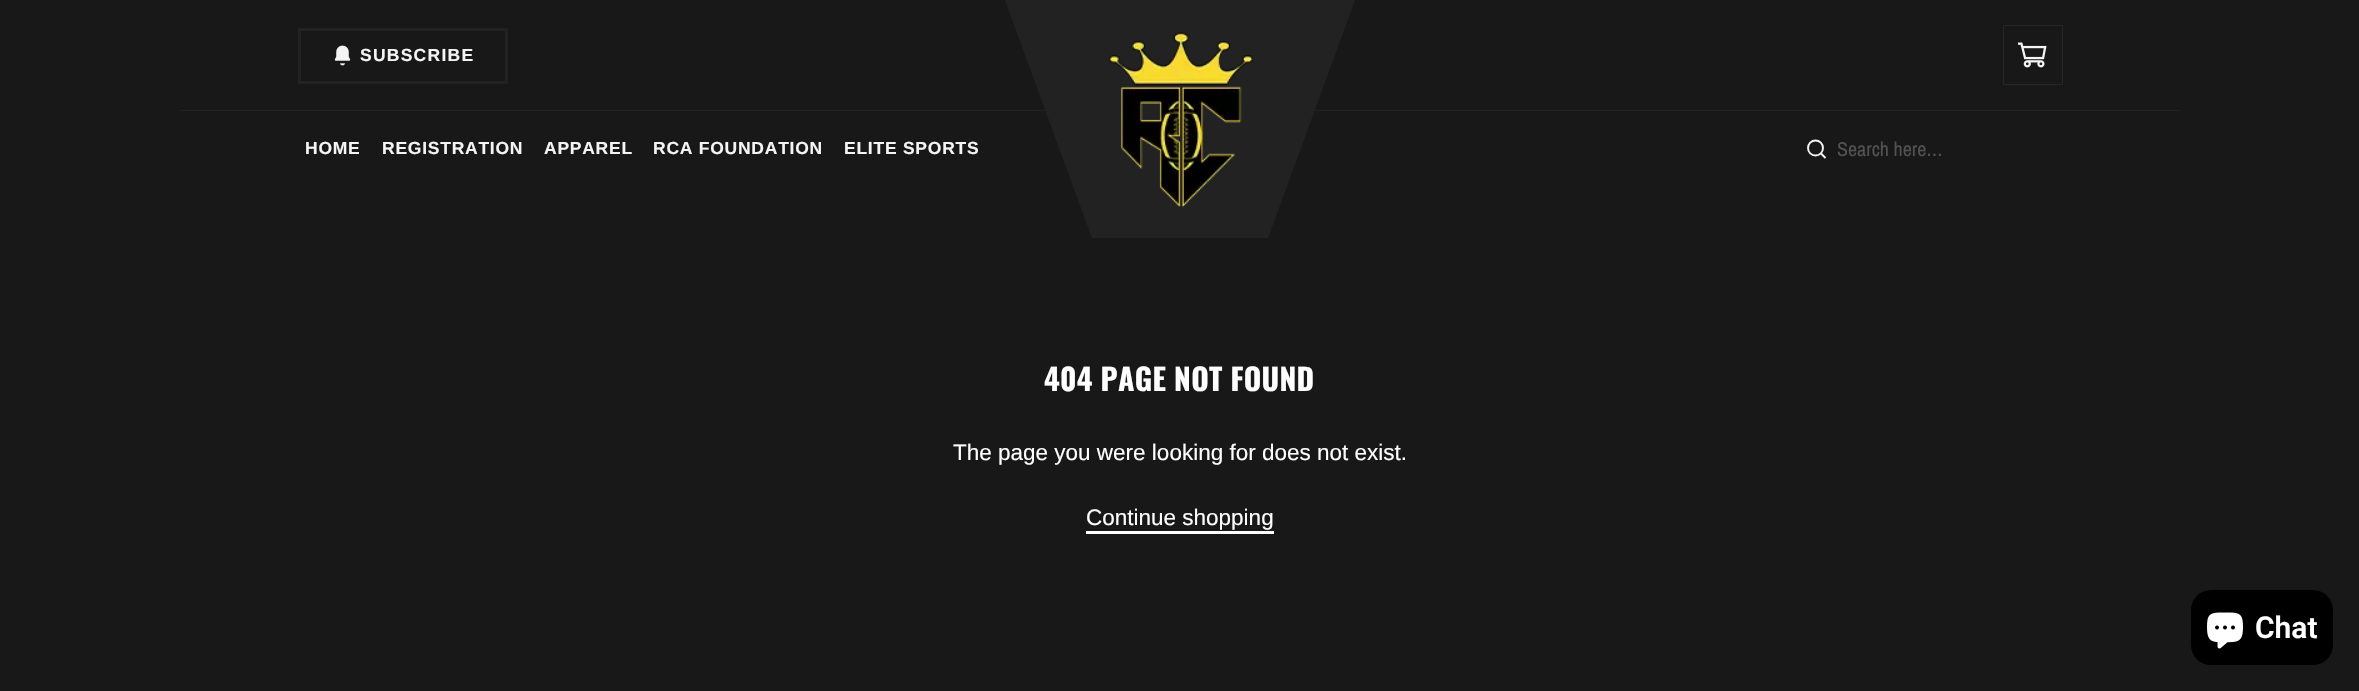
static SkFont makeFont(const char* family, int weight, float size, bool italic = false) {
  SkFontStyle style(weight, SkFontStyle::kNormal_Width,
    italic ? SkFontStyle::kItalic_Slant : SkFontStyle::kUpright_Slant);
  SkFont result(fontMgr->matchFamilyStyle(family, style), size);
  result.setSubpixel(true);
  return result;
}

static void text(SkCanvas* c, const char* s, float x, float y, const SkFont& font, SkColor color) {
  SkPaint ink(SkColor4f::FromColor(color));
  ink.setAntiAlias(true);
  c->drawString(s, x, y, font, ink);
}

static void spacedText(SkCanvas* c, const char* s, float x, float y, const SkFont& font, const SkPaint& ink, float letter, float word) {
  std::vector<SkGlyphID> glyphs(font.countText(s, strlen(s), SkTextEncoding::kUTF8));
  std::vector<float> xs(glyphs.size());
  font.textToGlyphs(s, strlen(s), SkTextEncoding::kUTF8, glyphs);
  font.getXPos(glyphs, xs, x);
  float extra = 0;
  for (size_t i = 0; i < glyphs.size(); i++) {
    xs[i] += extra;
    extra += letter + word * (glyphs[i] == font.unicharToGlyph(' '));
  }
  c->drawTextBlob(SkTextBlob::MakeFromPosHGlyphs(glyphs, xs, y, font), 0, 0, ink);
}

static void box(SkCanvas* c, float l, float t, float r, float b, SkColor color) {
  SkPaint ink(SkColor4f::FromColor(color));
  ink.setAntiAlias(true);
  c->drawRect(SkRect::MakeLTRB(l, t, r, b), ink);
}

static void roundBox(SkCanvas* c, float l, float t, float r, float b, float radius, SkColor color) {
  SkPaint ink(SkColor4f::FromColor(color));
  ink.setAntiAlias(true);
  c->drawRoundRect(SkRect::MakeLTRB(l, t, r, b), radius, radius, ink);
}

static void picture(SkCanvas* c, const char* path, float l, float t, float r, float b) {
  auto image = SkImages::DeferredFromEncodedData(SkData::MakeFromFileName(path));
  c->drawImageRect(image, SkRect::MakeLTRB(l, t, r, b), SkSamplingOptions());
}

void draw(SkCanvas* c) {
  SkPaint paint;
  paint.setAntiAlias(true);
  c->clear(0xff181818);
  paint.setStyle(SkPaint::kStroke_Style);
  paint.setStrokeWidth(3);
  paint.setColor(0xff222222);
  c->drawRect(SkRect::MakeLTRB(299.5f, 29.5f, 506.5f, 82.5f), paint);
  picture(c, "img_01.png", 334, 45, 351, 66);
  SkFont face1 = makeFont("Liberation Sans", 700, 17.5f);
  paint.setStyle(SkPaint::kFill_Style);
  paint.setColor(0xfff4f4f4);
  spacedText(c, "SUBSCRIBE", 360, 61, face1, paint, 1.25f, 0);
  paint.setStyle(SkPaint::kStroke_Style);
  paint.setStrokeWidth(1);
  paint.setColor(0xff262626);
  c->drawRect(SkRect::MakeLTRB(2003.5f, 25.5f, 2062.5f, 84.5f), paint);
  picture(c, "img_02.png", 2018, 42, 2047, 68);
  box(c, 180, 110, 2180, 111, 0xff222222);
  paint.setStyle(SkPaint::kFill_Style);
  paint.setColor(0xff222222);
  c->drawPath(SkPathBuilder().moveTo(1005, 0).lineTo(1092, 238).lineTo(1268, 238).lineTo(1355, 0).close().detach(), paint);
  picture(c, "img_03.png", 1108, 32, 1253, 207);
  paint.setColor(0xfff4f4f4);
  spacedText(c, "HOME", 305, 154, face1, paint, 0.75f, 0);
  spacedText(c, "REGISTRATION", 382, 154, face1, paint, 0.75f, 0);
  spacedText(c, "APPAREL", 544, 154, face1, paint, 0.75f, 0);
  spacedText(c, "RCA FOUNDATION", 653, 154, face1, paint, 0.75f, 0);
  spacedText(c, "ELITE SPORTS", 844, 154, face1, paint, 0.75f, 0);
  paint.setStyle(SkPaint::kStroke_Style);
  paint.setStrokeWidth(1.9f);
  c->drawCircle(1815.5f, 148, 7.5f, paint);
  c->drawPath(SkPathBuilder().moveTo(1821, 153.5f).lineTo(1825.5f, 158).detach(), paint);
  SkFont face2 = makeFont("Archivo Narrow", 400, 20);
  text(c, "Search here…", 1837, 156, face2, 0xff525252);
  SkFont face3 = makeFont("Oswald", 700, 30);
  paint.setStyle(SkPaint::kFill_Style);
  paint.setColor(0xffffffff);
  spacedText(c, "404 PAGE NOT FOUND", 1044, 391, face3, paint, 0.25f, 0);
  SkFont face4 = makeFont("Liberation Sans", 400, 22.5f);
  text(c, "The page you were looking for does not exist.", 953, 460, face4, 0xffffffff);
  text(c, "Continue shopping", 1086, 525, face4, 0xffffffff);
  box(c, 1086, 531, 1274, 534, 0xffffffff);
  roundBox(c, 2191, 590, 2333, 665, 20, 0xff000000);
  picture(c, "img_04.png", 2207, 612, 2243, 649);
  SkFont face5 = makeFont("Roboto", 600, 30);
  text(c, "Chat", 2255, 638, face5, 0xffffffff);
}
